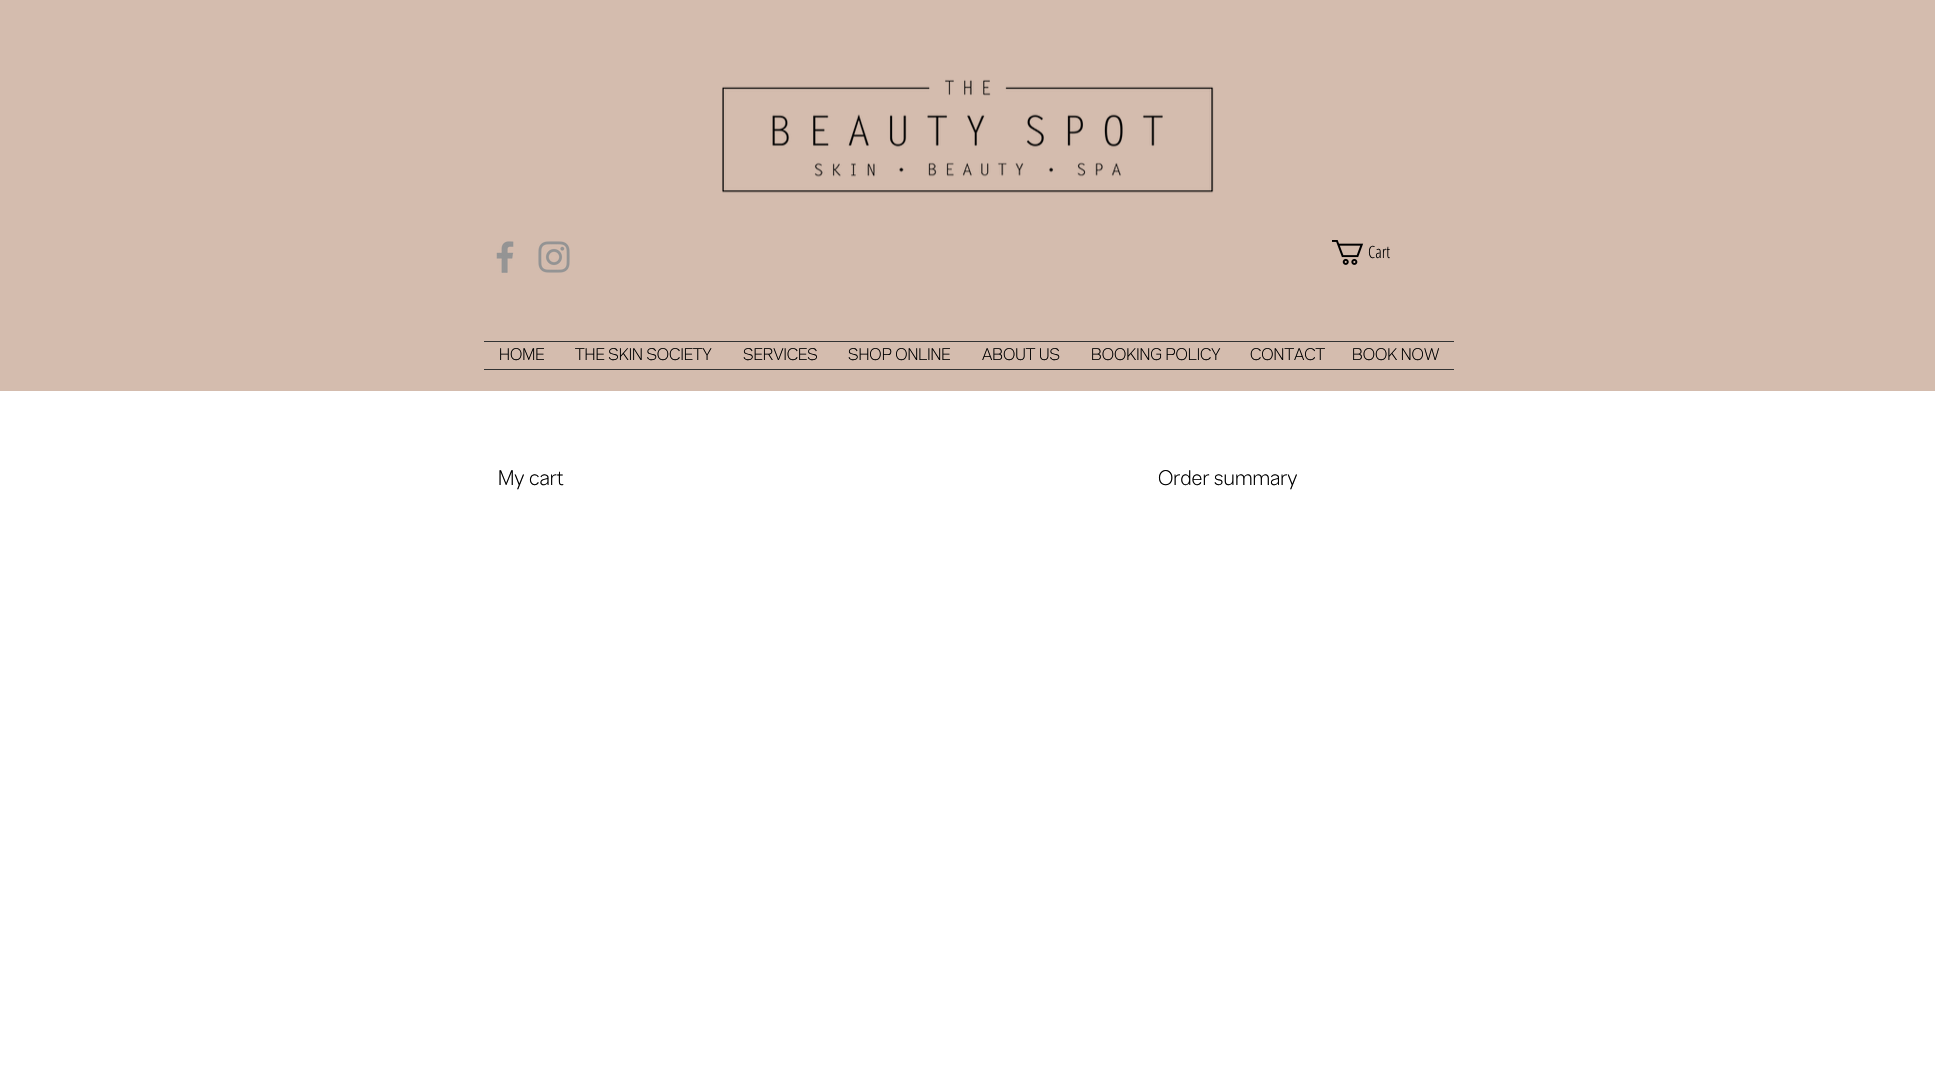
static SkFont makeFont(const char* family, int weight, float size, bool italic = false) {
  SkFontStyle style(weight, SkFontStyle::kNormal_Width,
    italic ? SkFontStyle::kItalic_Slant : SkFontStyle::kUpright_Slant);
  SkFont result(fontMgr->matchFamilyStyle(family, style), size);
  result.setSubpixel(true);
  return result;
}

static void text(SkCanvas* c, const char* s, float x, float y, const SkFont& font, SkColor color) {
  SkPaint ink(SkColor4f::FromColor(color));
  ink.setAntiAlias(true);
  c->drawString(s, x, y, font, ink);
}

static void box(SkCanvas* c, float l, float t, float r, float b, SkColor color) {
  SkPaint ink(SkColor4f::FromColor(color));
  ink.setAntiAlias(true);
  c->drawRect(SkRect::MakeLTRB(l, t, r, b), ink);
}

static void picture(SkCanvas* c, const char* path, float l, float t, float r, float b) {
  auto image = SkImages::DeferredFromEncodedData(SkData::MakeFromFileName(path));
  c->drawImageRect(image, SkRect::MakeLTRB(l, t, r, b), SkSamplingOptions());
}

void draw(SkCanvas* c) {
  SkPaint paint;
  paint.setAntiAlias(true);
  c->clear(0xffffffff);
  box(c, 0, 0, 1935, 391, 0xffd4bcae);
  picture(c, "img_01.png", 722, 79, 1214, 193);
  picture(c, "img_02.png", 496, 241, 514, 273);
  picture(c, "img_03.png", 538, 241, 570, 273);
  picture(c, "img_04.png", 1332, 240, 1364, 265);
  SkFont face1 = makeFont("Open Sans Condensed", 300, 17);
  text(c, "Cart", 1368, 258, face1, 0xff000000);
  box(c, 484, 341, 1454, 342, 0xff333333);
  box(c, 484, 369, 1454, 370, 0xff333333);
  SkFont face2 = makeFont("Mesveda", 400, 16);
  text(c, "HOME", 499, 360, face2, 0xff000000);
  text(c, "THE SKIN SOCIETY", 575, 360, face2, 0xff000000);
  text(c, "SERVICES", 743, 360, face2, 0xff000000);
  text(c, "SHOP ONLINE", 848, 360, face2, 0xff000000);
  text(c, "ABOUT US", 982, 360, face2, 0xff000000);
  text(c, "BOOKING POLICY", 1091, 360, face2, 0xff000000);
  text(c, "CONTACT", 1250, 360, face2, 0xff000000);
  text(c, "BOOK NOW", 1352, 360, face2, 0xff000000);
  SkFont face3 = makeFont("Mesveda", 400, 20);
  text(c, "My cart", 498, 485, face3, 0xff000000);
  text(c, "Order summary", 1158, 485, face3, 0xff000000);
}
